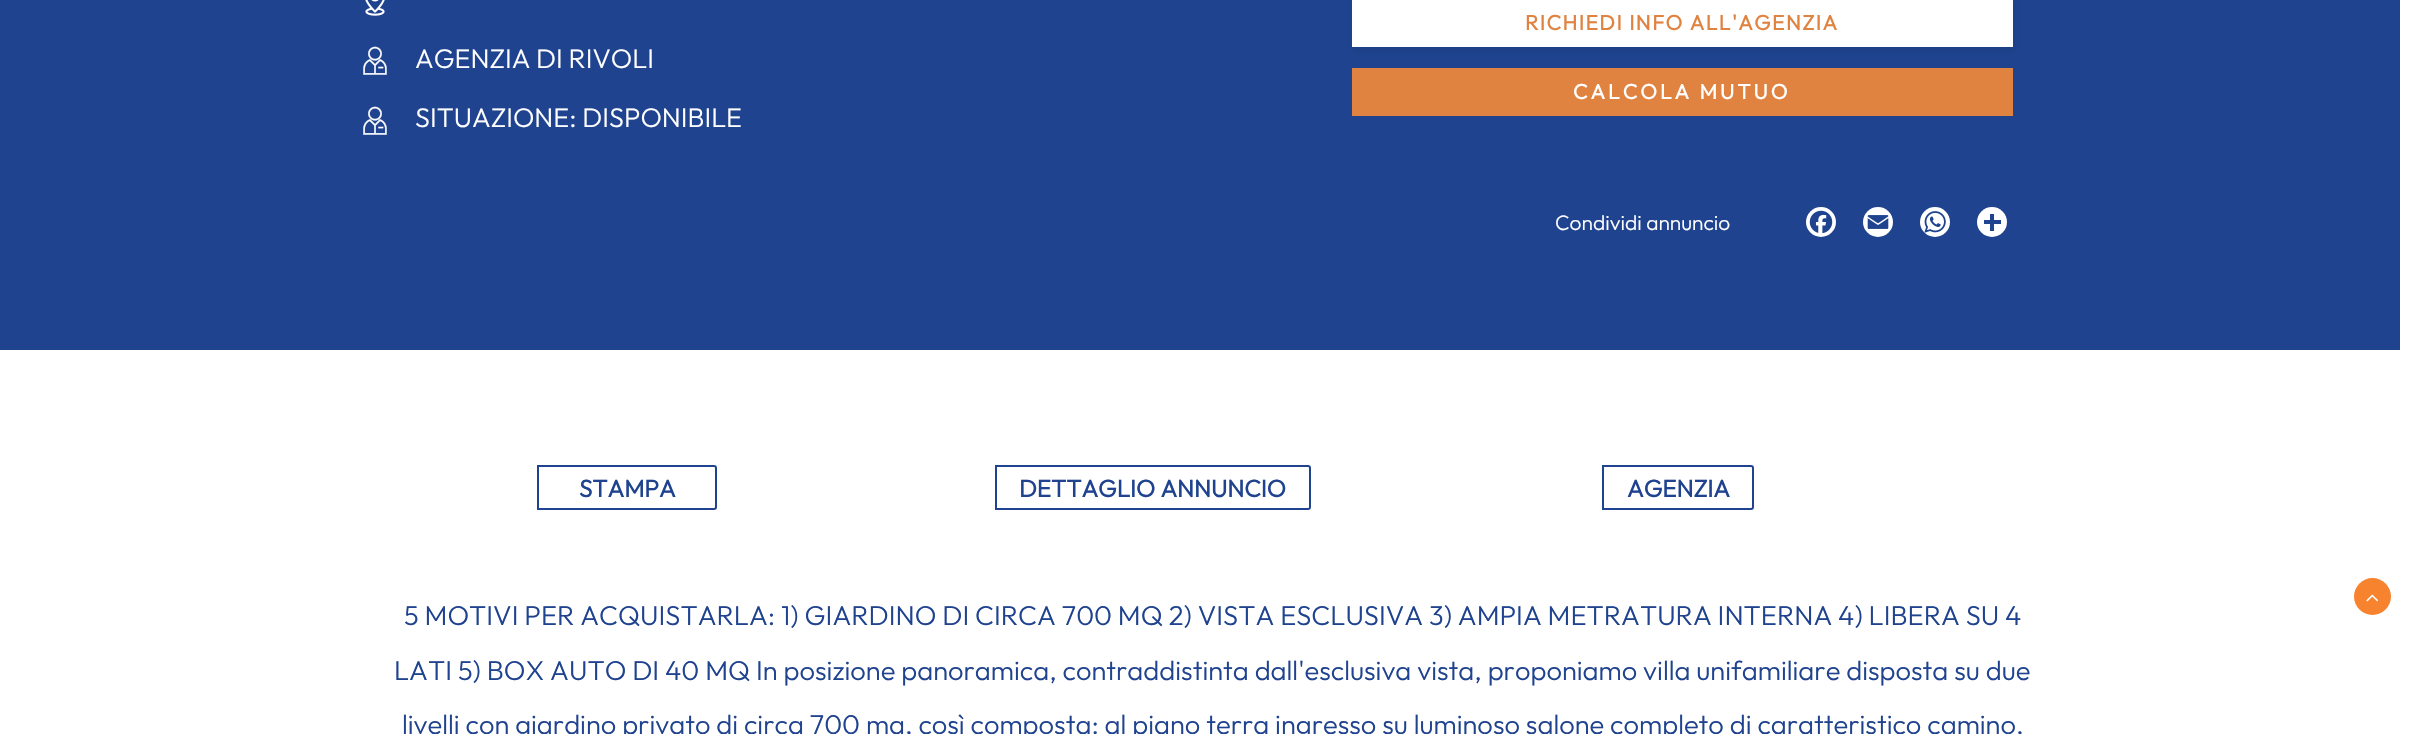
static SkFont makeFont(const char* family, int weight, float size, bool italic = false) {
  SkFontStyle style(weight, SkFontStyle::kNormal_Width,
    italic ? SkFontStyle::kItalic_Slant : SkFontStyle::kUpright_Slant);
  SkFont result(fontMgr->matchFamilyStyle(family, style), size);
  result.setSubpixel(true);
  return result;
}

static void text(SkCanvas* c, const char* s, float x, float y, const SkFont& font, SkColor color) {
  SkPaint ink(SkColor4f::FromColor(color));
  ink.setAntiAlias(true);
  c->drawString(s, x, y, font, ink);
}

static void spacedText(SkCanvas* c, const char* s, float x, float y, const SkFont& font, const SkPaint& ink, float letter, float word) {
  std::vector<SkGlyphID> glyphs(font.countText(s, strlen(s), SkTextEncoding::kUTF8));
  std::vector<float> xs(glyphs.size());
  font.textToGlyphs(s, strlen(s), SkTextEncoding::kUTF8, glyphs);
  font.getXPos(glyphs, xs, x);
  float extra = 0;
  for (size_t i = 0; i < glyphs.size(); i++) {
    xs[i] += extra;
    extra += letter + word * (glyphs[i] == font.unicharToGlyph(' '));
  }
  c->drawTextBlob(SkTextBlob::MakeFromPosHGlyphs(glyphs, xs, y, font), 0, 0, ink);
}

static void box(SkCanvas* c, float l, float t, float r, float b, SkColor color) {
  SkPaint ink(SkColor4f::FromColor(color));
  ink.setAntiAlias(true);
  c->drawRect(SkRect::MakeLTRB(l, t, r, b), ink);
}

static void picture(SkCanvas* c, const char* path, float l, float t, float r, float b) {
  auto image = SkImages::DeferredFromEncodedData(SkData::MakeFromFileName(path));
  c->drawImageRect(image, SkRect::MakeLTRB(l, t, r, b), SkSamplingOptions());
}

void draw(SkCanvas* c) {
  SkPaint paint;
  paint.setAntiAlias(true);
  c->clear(0xffffffff);
  box(c, 0, 0, 2400, 350, 0xff1f438f);
  picture(c, "img_01.png", 365, 0, 385, 16);
  picture(c, "img_02.png", 363, 46, 387, 75);
  SkFont face1 = makeFont("Outfit", 100, 27);
  text(c, "AGENZIA DI RIVOLI", 415, 68, face1, 0xffffffff);
  picture(c, "img_02.png", 363, 106, 387, 135);
  text(c, "SITUAZIONE: DISPONIBILE", 415, 127, face1, 0xffffffff);
  paint.setColor(0x14000000);
  paint.setMaskFilter(SkMaskFilter::MakeBlur(kNormal_SkBlurStyle, 3));
  c->drawRect(SkRect::MakeLTRB(1353, 2, 2015, 50), paint);
  paint.setMaskFilter(nullptr);
  box(c, 1352, 0, 2013, 47, 0xffffffff);
  SkFont face2 = makeFont("Outfit", 700, 21);
  paint.setColor(0xffe08240);
  spacedText(c, "RICHIEDI INFO ALL'AGENZIA", 1525, 30, face2, paint, 1.5f, 0);
  box(c, 1352, 68, 2013, 116, 0xffe08240);
  paint.setColor(0xffffffff);
  spacedText(c, "CALCOLA MUTUO", 1573, 99, face2, paint, 3, 0);
  SkFont face3 = makeFont("Outfit", 100, 21);
  text(c, "Condividi annuncio", 1555, 230, face3, 0xffffffff);
  c->drawCircle(1821, 222, 15, paint);
  picture(c, "img_03.png", 1809, 210, 1833, 234);
  c->drawCircle(1878, 222, 15, paint);
  picture(c, "img_04.png", 1867, 215, 1889, 229);
  c->drawCircle(1935, 222, 15, paint);
  picture(c, "img_05.png", 1924, 211, 1946, 233);
  c->drawCircle(1992, 222, 15, paint);
  box(c, 1990, 214, 1994, 231, 0xff1f438f);
  box(c, 1984, 220, 2001, 224, 0xff1f438f);
  paint.setStyle(SkPaint::kStroke_Style);
  paint.setStrokeWidth(2);
  paint.setColor(0xff1f438f);
  c->drawPath(SkPathBuilder().moveTo(538, 466).lineTo(714, 466).cubicTo(715, 466, 716, 467, 716, 468).lineTo(716, 507).cubicTo(716, 508, 715, 509, 714, 509).lineTo(538, 509).close().detach(), paint);
  SkFont face4 = makeFont("Outfit", 700, 24.1f);
  text(c, "STAMPA", 579, 497, face4, 0xff1f438f);
  c->drawPath(SkPathBuilder().moveTo(996, 466).lineTo(1308, 466).cubicTo(1309, 466, 1310, 467, 1310, 468).lineTo(1310, 507).cubicTo(1310, 508, 1309, 509, 1308, 509).lineTo(996, 509).close().detach(), paint);
  text(c, "DETTAGLIO ANNUNCIO", 1019, 497, face4, 0xff1f438f);
  c->drawPath(SkPathBuilder().moveTo(1603, 466).lineTo(1751, 466).cubicTo(1752, 466, 1753, 467, 1753, 468).lineTo(1753, 507).cubicTo(1753, 508, 1752, 509, 1751, 509).lineTo(1603, 509).close().detach(), paint);
  text(c, "AGENZIA", 1627, 497, face4, 0xff1f438f);
  SkFont face5 = makeFont("Outfit", 100, 27.3f);
  text(c, "5 MOTIVI PER ACQUISTARLA: 1) GIARDINO DI CIRCA 700 MQ 2) VISTA ESCLUSIVA 3) AMPIA METRATURA INTERNA 4) LIBERA SU 4", 404, 625, face5, 0xff1f438f);
  text(c, "LATI 5) BOX AUTO DI 40 MQ In posizione panoramica, contraddistinta dall'esclusiva vista, proponiamo villa unifamiliare disposta su due", 394, 680, face5, 0xff1f438f);
  text(c, "livelli con giardino privato di circa 700 mq, così composta: al piano terra ingresso su luminoso salone completo di caratteristico camino,", 402, 734, face5, 0xff1f438f);
  paint.setStyle(SkPaint::kFill_Style);
  paint.setColor(0xfff7832e);
  c->drawCircle(2372.5f, 596.5f, 18.5f, paint);
  picture(c, "img_06.png", 2366, 594, 2379, 602);
}
